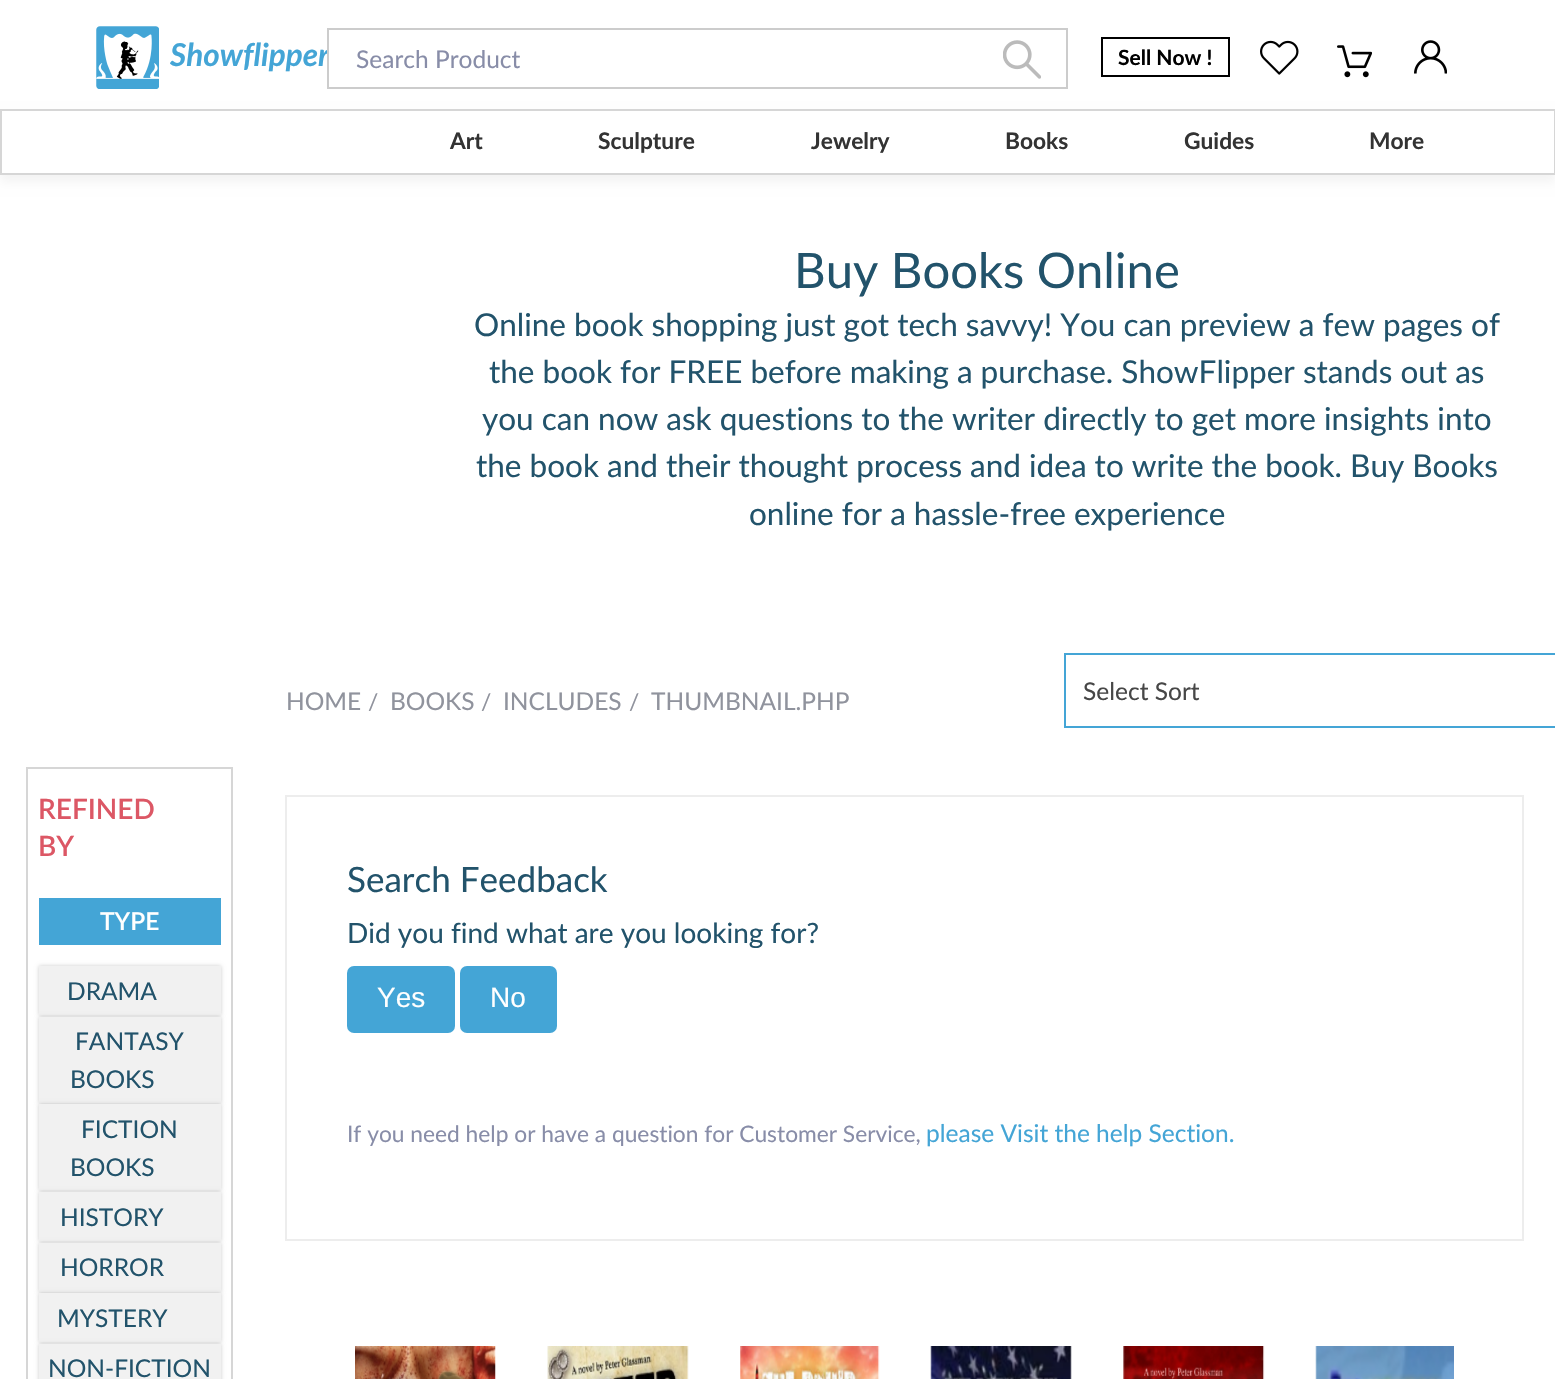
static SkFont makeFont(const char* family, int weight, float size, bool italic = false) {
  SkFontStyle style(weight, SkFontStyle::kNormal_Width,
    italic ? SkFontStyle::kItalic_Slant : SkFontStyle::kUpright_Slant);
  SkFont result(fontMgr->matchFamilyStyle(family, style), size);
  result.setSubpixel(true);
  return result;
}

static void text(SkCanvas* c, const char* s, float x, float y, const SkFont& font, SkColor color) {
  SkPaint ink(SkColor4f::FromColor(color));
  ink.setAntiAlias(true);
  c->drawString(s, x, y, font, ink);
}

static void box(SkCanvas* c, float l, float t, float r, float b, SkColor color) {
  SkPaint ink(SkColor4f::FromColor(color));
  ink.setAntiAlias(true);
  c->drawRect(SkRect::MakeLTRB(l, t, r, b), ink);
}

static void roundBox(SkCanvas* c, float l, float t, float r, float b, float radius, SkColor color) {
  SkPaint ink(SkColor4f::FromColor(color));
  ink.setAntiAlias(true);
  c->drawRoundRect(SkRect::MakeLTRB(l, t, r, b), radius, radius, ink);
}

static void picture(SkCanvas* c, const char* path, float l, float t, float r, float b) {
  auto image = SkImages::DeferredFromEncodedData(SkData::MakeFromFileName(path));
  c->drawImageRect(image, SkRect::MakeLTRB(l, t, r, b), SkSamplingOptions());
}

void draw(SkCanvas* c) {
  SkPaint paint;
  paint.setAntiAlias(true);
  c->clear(0xffffffff);
  picture(c, "img_01.png", 96, 26, 159, 89);
  SkFont face1 = makeFont("Lato", 700, 31.5f, true);
  text(c, "Showflipper", 170, 66, face1, 0xff44a5d6);
  box(c, 329, 49, 330, 54, 0xffffffff);
  paint.setStyle(SkPaint::kStroke_Style);
  paint.setStrokeWidth(2);
  paint.setColor(0xffcccccc);
  c->drawRect(SkRect::MakeLTRB(328, 29, 1067, 88), paint);
  SkFont face2 = makeFont("Lato", 400, 24.5f);
  text(c, "Search Product", 356, 68, face2, 0xff888da8);
  picture(c, "img_02.png", 1003, 40, 1041, 79);
  paint.setColor(0xff000000);
  c->drawRect(SkRect::MakeLTRB(1102, 38, 1229, 76), paint);
  SkFont face3 = makeFont("Lato", 700, 21);
  text(c, "Sell Now !", 1118, 65, face3, 0xff000000);
  picture(c, "img_03.png", 1260, 40, 1299, 75);
  picture(c, "img_04.png", 1337, 45, 1372, 78);
  picture(c, "img_05.png", 1414, 40, 1447, 74);
  c->save();
  c->clipPath(SkPathBuilder(SkPathFillType::kEvenOdd).moveTo(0, 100).lineTo(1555, 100).lineTo(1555, 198).lineTo(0, 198).close().moveTo(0, 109).lineTo(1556, 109).lineTo(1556, 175).lineTo(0, 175).close().detach(), true);
  paint.setStyle(SkPaint::kFill_Style);
  paint.setColor(0xfff3f3f3);
  paint.setMaskFilter(SkMaskFilter::MakeBlur(kNormal_SkBlurStyle, 5));
  c->drawRect(SkRect::MakeLTRB(0, 116, 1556, 182), paint);
  paint.setMaskFilter(nullptr);
  c->restore();
  paint.setStyle(SkPaint::kStroke_Style);
  paint.setColor(0xffd6d6d6);
  c->drawRect(SkRect::MakeLTRB(1, 110, 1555, 174), paint);
  SkFont face4 = makeFont("Lato", 700, 22.75f);
  text(c, "Art", 450, 149, face4, 0xff333333);
  text(c, "Sculpture", 598, 149, face4, 0xff333333);
  text(c, "Jewelry", 811, 149, face4, 0xff333333);
  text(c, "Books", 1005, 149, face4, 0xff333333);
  text(c, "Guides", 1184, 149, face4, 0xff333333);
  text(c, "More", 1369, 149, face4, 0xff333333);
  SkFont face5 = makeFont("Lato", 400, 49);
  text(c, "Buy Books Online", 794, 288, face5, 0xff22536b);
  SkFont face6 = makeFont("Lato", 400, 31.5f);
  text(c, "Online book shopping just got tech savvy! You can preview a few pages of", 474, 336, face6, 0xff22536b);
  text(c, "the book for FREE before making a purchase. ShowFlipper stands out as", 489, 383, face6, 0xff22536b);
  text(c, "you can now ask questions to the writer directly to get more insights into", 482, 430, face6, 0xff22536b);
  text(c, "the book and their thought process and idea to write the book. Buy Books", 476, 477, face6, 0xff22536b);
  text(c, "online for a hassle-free experience", 749, 525, face6, 0xff22536b);
  text(c, "HOME", 286, 710, face2, 0xff90939d);
  SkFont face7 = makeFont("Lato", 400, 22.75f);
  text(c, "/", 368, 710, face7, 0xff90939d);
  text(c, "BOOKS", 390, 710, face2, 0xff90939d);
  text(c, "/", 481, 710, face7, 0xff90939d);
  text(c, "INCLUDES", 503, 710, face2, 0xff90939d);
  text(c, "/", 629, 710, face7, 0xff90939d);
  text(c, "THUMBNAIL.PHP", 651, 710, face2, 0xff90939d);
  paint.setColor(0xff44a5d6);
  c->drawRect(SkRect::MakeLTRB(1065, 654, 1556, 727), paint);
  text(c, "Select Sort", 1083, 700, face2, 0xff474747);
  paint.setColor(0xffd6d6d6);
  c->drawRect(SkRect::MakeLTRB(27, 768, 232, 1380), paint);
  SkFont face8 = makeFont("Lato", 600, 28);
  text(c, "REFINED", 38, 819, face8, 0xffdc5765);
  text(c, "BY", 38, 856, face8, 0xffdc5765);
  box(c, 39, 898, 221, 945, 0xff44a5d6);
  SkFont face9 = makeFont("Lato", 600, 24.5f);
  text(c, "TYPE", 100, 930, face9, 0xffffffff);
  paint.setStyle(SkPaint::kFill_Style);
  paint.setColor(0xffcccccc);
  paint.setMaskFilter(SkMaskFilter::MakeBlur(kNormal_SkBlurStyle, 2));
  c->drawRect(SkRect::MakeLTRB(39, 966, 221, 1015), paint);
  paint.setMaskFilter(nullptr);
  box(c, 39, 966, 221, 1015, 0xfff1f1f1);
  text(c, "DRAMA", 67, 1000, face2, 0xff22536b);
  paint.setMaskFilter(SkMaskFilter::MakeBlur(kNormal_SkBlurStyle, 2));
  c->drawRect(SkRect::MakeLTRB(39, 1017, 221, 1103), paint);
  paint.setMaskFilter(nullptr);
  box(c, 39, 1017, 221, 1103, 0xfff1f1f1);
  text(c, "FANTASY", 75, 1050, face2, 0xff22536b);
  text(c, "BOOKS", 70, 1088, face2, 0xff22536b);
  paint.setMaskFilter(SkMaskFilter::MakeBlur(kNormal_SkBlurStyle, 2));
  c->drawRect(SkRect::MakeLTRB(39, 1104, 221, 1190), paint);
  paint.setMaskFilter(nullptr);
  box(c, 39, 1104, 221, 1190, 0xfff1f1f1);
  text(c, "FICTION", 81, 1138, face2, 0xff22536b);
  text(c, "BOOKS", 70, 1176, face2, 0xff22536b);
  paint.setMaskFilter(SkMaskFilter::MakeBlur(kNormal_SkBlurStyle, 2));
  c->drawRect(SkRect::MakeLTRB(39, 1192, 221, 1241), paint);
  paint.setMaskFilter(nullptr);
  box(c, 39, 1192, 221, 1241, 0xfff1f1f1);
  text(c, "HISTORY", 60, 1226, face2, 0xff22536b);
  paint.setMaskFilter(SkMaskFilter::MakeBlur(kNormal_SkBlurStyle, 2));
  c->drawRect(SkRect::MakeLTRB(39, 1243, 221, 1292), paint);
  paint.setMaskFilter(nullptr);
  box(c, 39, 1243, 221, 1292, 0xfff1f1f1);
  text(c, "HORROR", 60, 1276, face2, 0xff22536b);
  paint.setMaskFilter(SkMaskFilter::MakeBlur(kNormal_SkBlurStyle, 2));
  c->drawRect(SkRect::MakeLTRB(39, 1293, 221, 1342), paint);
  paint.setMaskFilter(nullptr);
  box(c, 39, 1293, 221, 1342, 0xfff1f1f1);
  text(c, "MYSTERY", 57, 1327, face2, 0xff22536b);
  paint.setMaskFilter(SkMaskFilter::MakeBlur(kNormal_SkBlurStyle, 2));
  c->drawRect(SkRect::MakeLTRB(39, 1344, 221, 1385), paint);
  paint.setMaskFilter(nullptr);
  box(c, 39, 1344, 221, 1379, 0xfff1f1f1);
  text(c, "NON-FICTION", 48, 1377, face2, 0xff22536b);
  paint.setStyle(SkPaint::kStroke_Style);
  paint.setColor(0xffededed);
  c->drawRect(SkRect::MakeLTRB(286, 796, 1523, 1240), paint);
  SkFont face10 = makeFont("Lato", 400, 35);
  text(c, "Search Feedback", 347, 892, face10, 0xff22536b);
  SkFont face11 = makeFont("Lato", 400, 28);
  text(c, "Did you find what are you looking for?", 347, 943, face11, 0xff22536b);
  roundBox(c, 347, 966, 455, 1033, 7, 0xff44a5d6);
  SkFont face12 = makeFont("Liberation Sans", 400, 28);
  text(c, "Yes", 377, 1007, face12, 0xffffffff);
  roundBox(c, 460, 966, 557, 1033, 7, 0xff44a5d6);
  text(c, "No", 490, 1007, face12, 0xffffffff);
  text(c, "If you need help or have a question for Customer Service,", 347, 1142, face7, 0xff888da8);
  text(c, "please Visit the help Section.", 926, 1142, face2, 0xff44a5d6);
  picture(c, "img_06.png", 355, 1346, 496, 1379);
  picture(c, "img_07.png", 547, 1346, 689, 1379);
  picture(c, "img_08.png", 740, 1346, 880, 1379);
  picture(c, "img_09.png", 930, 1346, 1072, 1379);
  picture(c, "img_10.png", 1123, 1346, 1265, 1379);
  picture(c, "img_11.png", 1315, 1346, 1454, 1379);
}
